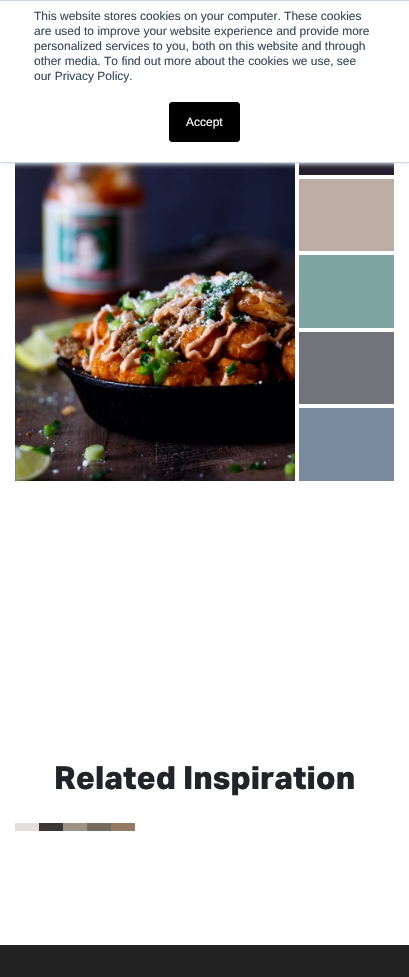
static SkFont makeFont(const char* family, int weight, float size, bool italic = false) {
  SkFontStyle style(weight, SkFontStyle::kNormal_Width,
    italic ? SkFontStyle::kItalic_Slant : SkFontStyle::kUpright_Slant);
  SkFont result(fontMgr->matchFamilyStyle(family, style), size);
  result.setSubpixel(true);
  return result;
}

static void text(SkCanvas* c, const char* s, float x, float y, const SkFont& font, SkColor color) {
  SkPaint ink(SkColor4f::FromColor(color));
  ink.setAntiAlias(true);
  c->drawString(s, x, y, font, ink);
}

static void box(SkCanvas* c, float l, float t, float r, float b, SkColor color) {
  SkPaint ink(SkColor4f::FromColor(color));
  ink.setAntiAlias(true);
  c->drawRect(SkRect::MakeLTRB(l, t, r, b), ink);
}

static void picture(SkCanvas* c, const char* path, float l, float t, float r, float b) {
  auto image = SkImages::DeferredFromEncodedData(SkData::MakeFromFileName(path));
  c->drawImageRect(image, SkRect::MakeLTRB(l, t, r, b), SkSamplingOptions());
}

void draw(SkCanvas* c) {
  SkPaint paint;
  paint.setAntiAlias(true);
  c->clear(0xffffffff);
  picture(c, "img_01.png", 15, 163, 295, 481);
  box(c, 299, 163, 394, 175, 0xff231f2e);
  paint.setColor(0xffeaf0f6);
  paint.setMaskFilter(SkMaskFilter::MakeBlur(kNormal_SkBlurStyle, 2.5f));
  c->drawRect(SkRect::MakeLTRB(0, 1, 409, 164), paint);
  paint.setMaskFilter(nullptr);
  box(c, 0, 1, 409, 162, 0xffffffff);
  box(c, 0, 0, 409, 1, 0xffcbd6e2);
  box(c, 0, 162, 409, 163, 0xffcbd6e2);
  SkFont face1 = makeFont("Liberation Sans", 400, 12);
  text(c, "This website stores cookies on your computer. These cookies", 34, 20, face1, 0xff33475b);
  text(c, "are used to improve your website experience and provide more", 34, 35, face1, 0xff33475b);
  text(c, "personalized services to you, both on this website and through", 34, 50, face1, 0xff33475b);
  text(c, "other media. To find out more about the cookies we use, see", 34, 65, face1, 0xff33475b);
  text(c, "our Privacy Policy.", 34, 80, face1, 0xff33475b);
  paint.setColor(0xff000000);
  c->drawRoundRect(SkRect::MakeLTRB(169.5f, 102.5f, 239.5f, 141.5f), 2.5f, 2.5f, paint);
  paint.setStyle(SkPaint::kStroke_Style);
  paint.setStrokeWidth(1);
  c->drawRoundRect(SkRect::MakeLTRB(169.5f, 102.5f, 239.5f, 141.5f), 2.5f, 2.5f, paint);
  text(c, "Accept", 186, 126, face1, 0xffffffff);
  box(c, 299, 179, 394, 251, 0xffbeada5);
  box(c, 299, 255, 394, 328, 0xff7ea5a1);
  box(c, 299, 332, 394, 404, 0xff73737b);
  box(c, 299, 408, 394, 481, 0xff7a8a9f);
  SkFont face2 = makeFont("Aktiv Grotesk", 700, 32);
  text(c, "Related Inspiration", 54, 789, face2, 0xff212529);
  box(c, 15, 823, 39, 831, 0xffe3dfdc);
  box(c, 39, 823, 63, 831, 0xff3d3733);
  box(c, 63, 823, 87, 831, 0xff9d9285);
  box(c, 87, 823, 111, 831, 0xff776a60);
  box(c, 111, 823, 135, 831, 0xff947a60);
  box(c, 0, 945, 409, 977, 0xff222222);
}
